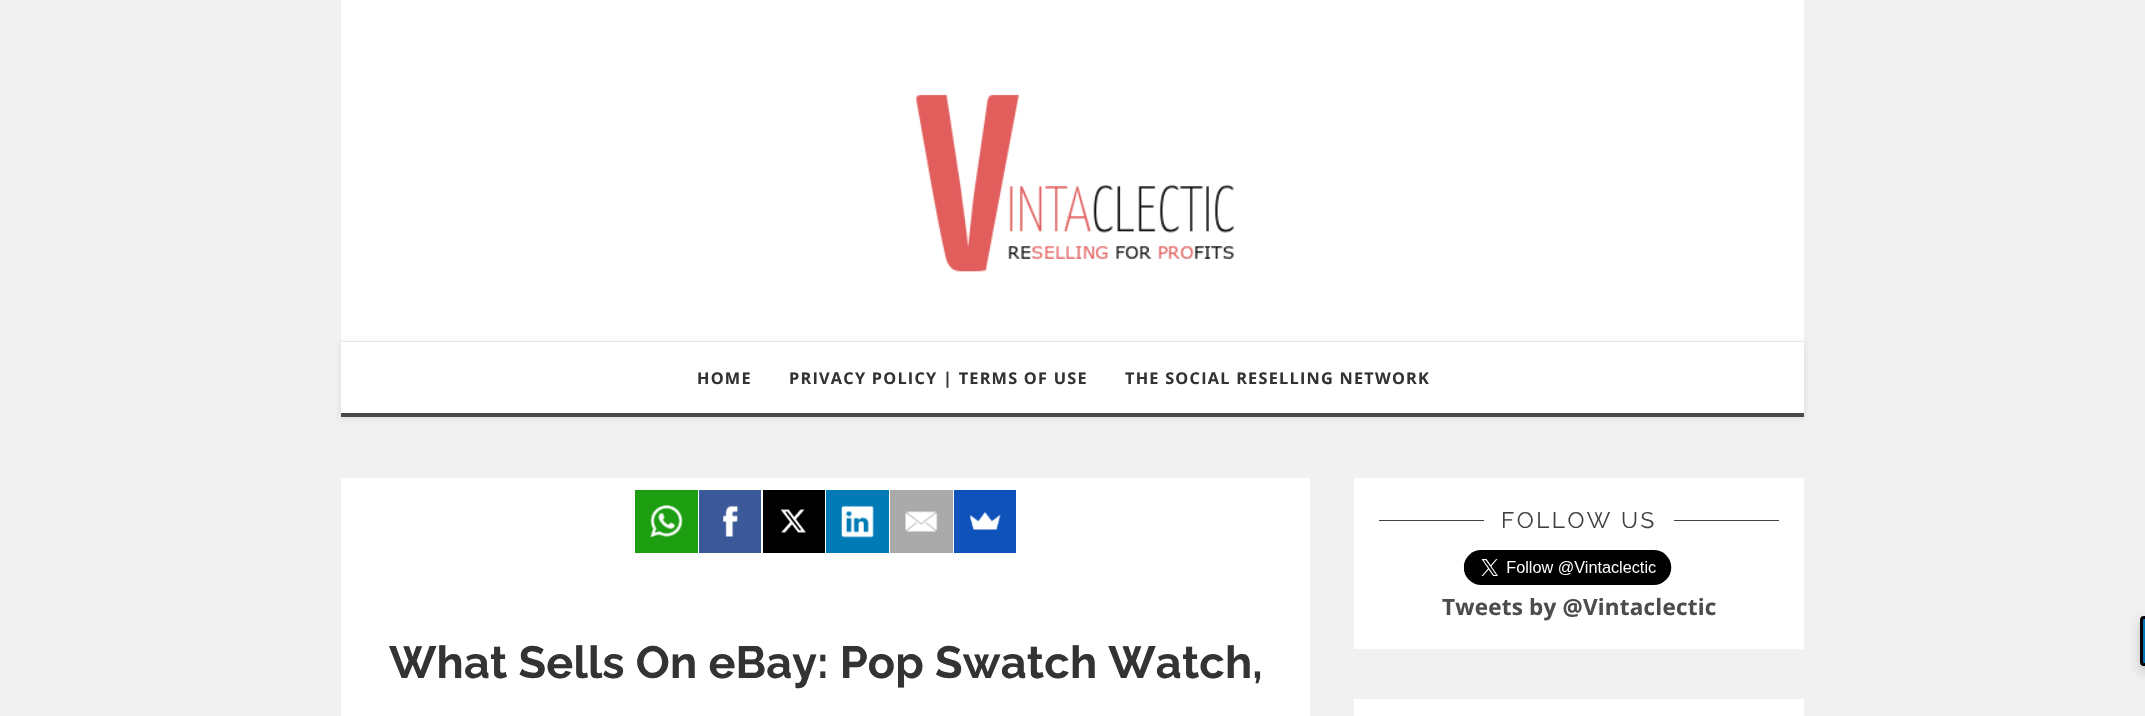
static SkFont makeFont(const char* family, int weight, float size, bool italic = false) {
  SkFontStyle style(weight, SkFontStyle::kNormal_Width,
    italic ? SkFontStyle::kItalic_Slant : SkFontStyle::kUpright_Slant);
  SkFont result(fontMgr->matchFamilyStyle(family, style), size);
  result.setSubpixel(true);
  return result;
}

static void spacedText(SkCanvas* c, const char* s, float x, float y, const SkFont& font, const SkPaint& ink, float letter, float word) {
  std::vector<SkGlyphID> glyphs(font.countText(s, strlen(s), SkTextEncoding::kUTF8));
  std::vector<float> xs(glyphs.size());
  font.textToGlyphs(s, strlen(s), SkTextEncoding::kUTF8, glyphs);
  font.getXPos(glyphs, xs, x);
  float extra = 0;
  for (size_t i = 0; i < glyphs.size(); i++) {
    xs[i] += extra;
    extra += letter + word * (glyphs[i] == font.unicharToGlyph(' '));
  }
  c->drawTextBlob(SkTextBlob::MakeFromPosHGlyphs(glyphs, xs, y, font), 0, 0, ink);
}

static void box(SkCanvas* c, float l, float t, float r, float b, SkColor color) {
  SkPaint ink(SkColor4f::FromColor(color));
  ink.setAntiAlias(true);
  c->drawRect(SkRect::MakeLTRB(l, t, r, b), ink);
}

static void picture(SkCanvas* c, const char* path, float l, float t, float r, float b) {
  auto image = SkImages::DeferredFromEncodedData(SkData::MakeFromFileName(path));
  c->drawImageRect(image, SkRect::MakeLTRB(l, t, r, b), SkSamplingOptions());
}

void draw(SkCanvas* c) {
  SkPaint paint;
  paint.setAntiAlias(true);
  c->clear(0xfff1f1f1);
  box(c, 341, 0, 1804, 341, 0xffffffff);
  picture(c, "img_01.png", 916, 94, 1234, 272);
  paint.setColor(0x1a000000);
  paint.setMaskFilter(SkMaskFilter::MakeBlur(kNormal_SkBlurStyle, 3));
  c->drawRect(SkRect::MakeLTRB(341, 343, 1804, 418), paint);
  paint.setMaskFilter(nullptr);
  box(c, 341, 342, 1804, 413, 0xffffffff);
  box(c, 341, 341, 1804, 342, 0xffe6e6e6);
  box(c, 341, 413, 1804, 417, 0xff494949);
  SkFont face1 = makeFont("Open Sans", 700, 16.25f);
  paint.setColor(0xff333333);
  spacedText(c, "HOME", 697, 384, face1, paint, 1.25f, 0);
  spacedText(c, "PRIVACY POLICY | TERMS OF USE", 789, 384, face1, paint, 1.25f, 0);
  spacedText(c, "THE SOCIAL RESELLING NETWORK", 1125, 384, face1, paint, 1.25f, 0);
  box(c, 1354, 478, 1804, 649, 0xffffffff);
  box(c, 1379, 520, 1484, 521, 0xff414141);
  SkFont face2 = makeFont("Raleway", 400, 22.5f);
  paint.setColor(0xff414141);
  spacedText(c, "FOLLOW US", 1501, 528, face2, paint, 2.5f, 0);
  box(c, 1674, 520, 1779, 521, 0xff414141);
  picture(c, "img_02.png", 1463, 550, 1672, 585);
  SkFont face3 = makeFont("Open Sans", 700, 22.5f);
  paint.setColor(0xff4c4c4c);
  spacedText(c, "Tweets by @Vintaclectic", 1442, 615, face3, paint, 0.2f, 0);
  box(c, 1354, 699, 1804, 716, 0xffffffff);
  box(c, 341, 478, 1310, 716, 0xffffffff);
  box(c, 635, 490, 698, 553, 0xff1d9e11);
  picture(c, "img_03.png", 650, 505, 683, 538);
  box(c, 699, 490, 761, 553, 0xff3b5998);
  picture(c, "img_04.png", 723, 505, 739, 537);
  box(c, 763, 490, 825, 553, 0xff000000);
  picture(c, "img_05.png", 780, 509, 806, 533);
  box(c, 826, 490, 889, 553, 0xff007bb6);
  picture(c, "img_06.png", 841, 505, 874, 538);
  box(c, 890, 490, 953, 553, 0xffaaaaaa);
  picture(c, "img_07.png", 905, 511, 938, 532);
  box(c, 954, 490, 1016, 553, 0xff0f52ba);
  picture(c, "img_08.png", 969, 512, 1001, 530);
  SkFont face4 = makeFont("Raleway", 700, 45);
  paint.setColor(0xff333333);
  spacedText(c, "What Sells On eBay: Pop Swatch Watch,", 389, 678, face4, paint, 0.2f, 0);
  paint.setColor(0x33000000);
  paint.setMaskFilter(SkMaskFilter::MakeBlur(kNormal_SkBlurStyle, 6));
  c->drawRoundRect(SkRect::MakeLTRB(2140, 621, 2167, 671), 4, 4, paint);
  paint.setMaskFilter(nullptr);
  paint.setColor(0xff0073b7);
  c->drawPath(SkPathBuilder().moveTo(2144, 617.5f).lineTo(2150.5f, 617.5f).lineTo(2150.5f, 664.5f).lineTo(2144, 664.5f).cubicTo(2142.5f, 664.5f, 2141.5f, 663.5f, 2141.5f, 662).lineTo(2141.5f, 620).cubicTo(2141.5f, 618.5f, 2142.5f, 617.5f, 2144, 617.5f).close().detach(), paint);
  paint.setStyle(SkPaint::kStroke_Style);
  paint.setStrokeWidth(3);
  paint.setColor(0xff000000);
  c->drawPath(SkPathBuilder().moveTo(2144, 617.5f).lineTo(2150.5f, 617.5f).lineTo(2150.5f, 664.5f).lineTo(2144, 664.5f).cubicTo(2142.5f, 664.5f, 2141.5f, 663.5f, 2141.5f, 662).lineTo(2141.5f, 620).cubicTo(2141.5f, 618.5f, 2142.5f, 617.5f, 2144, 617.5f).close().detach(), paint);
}
